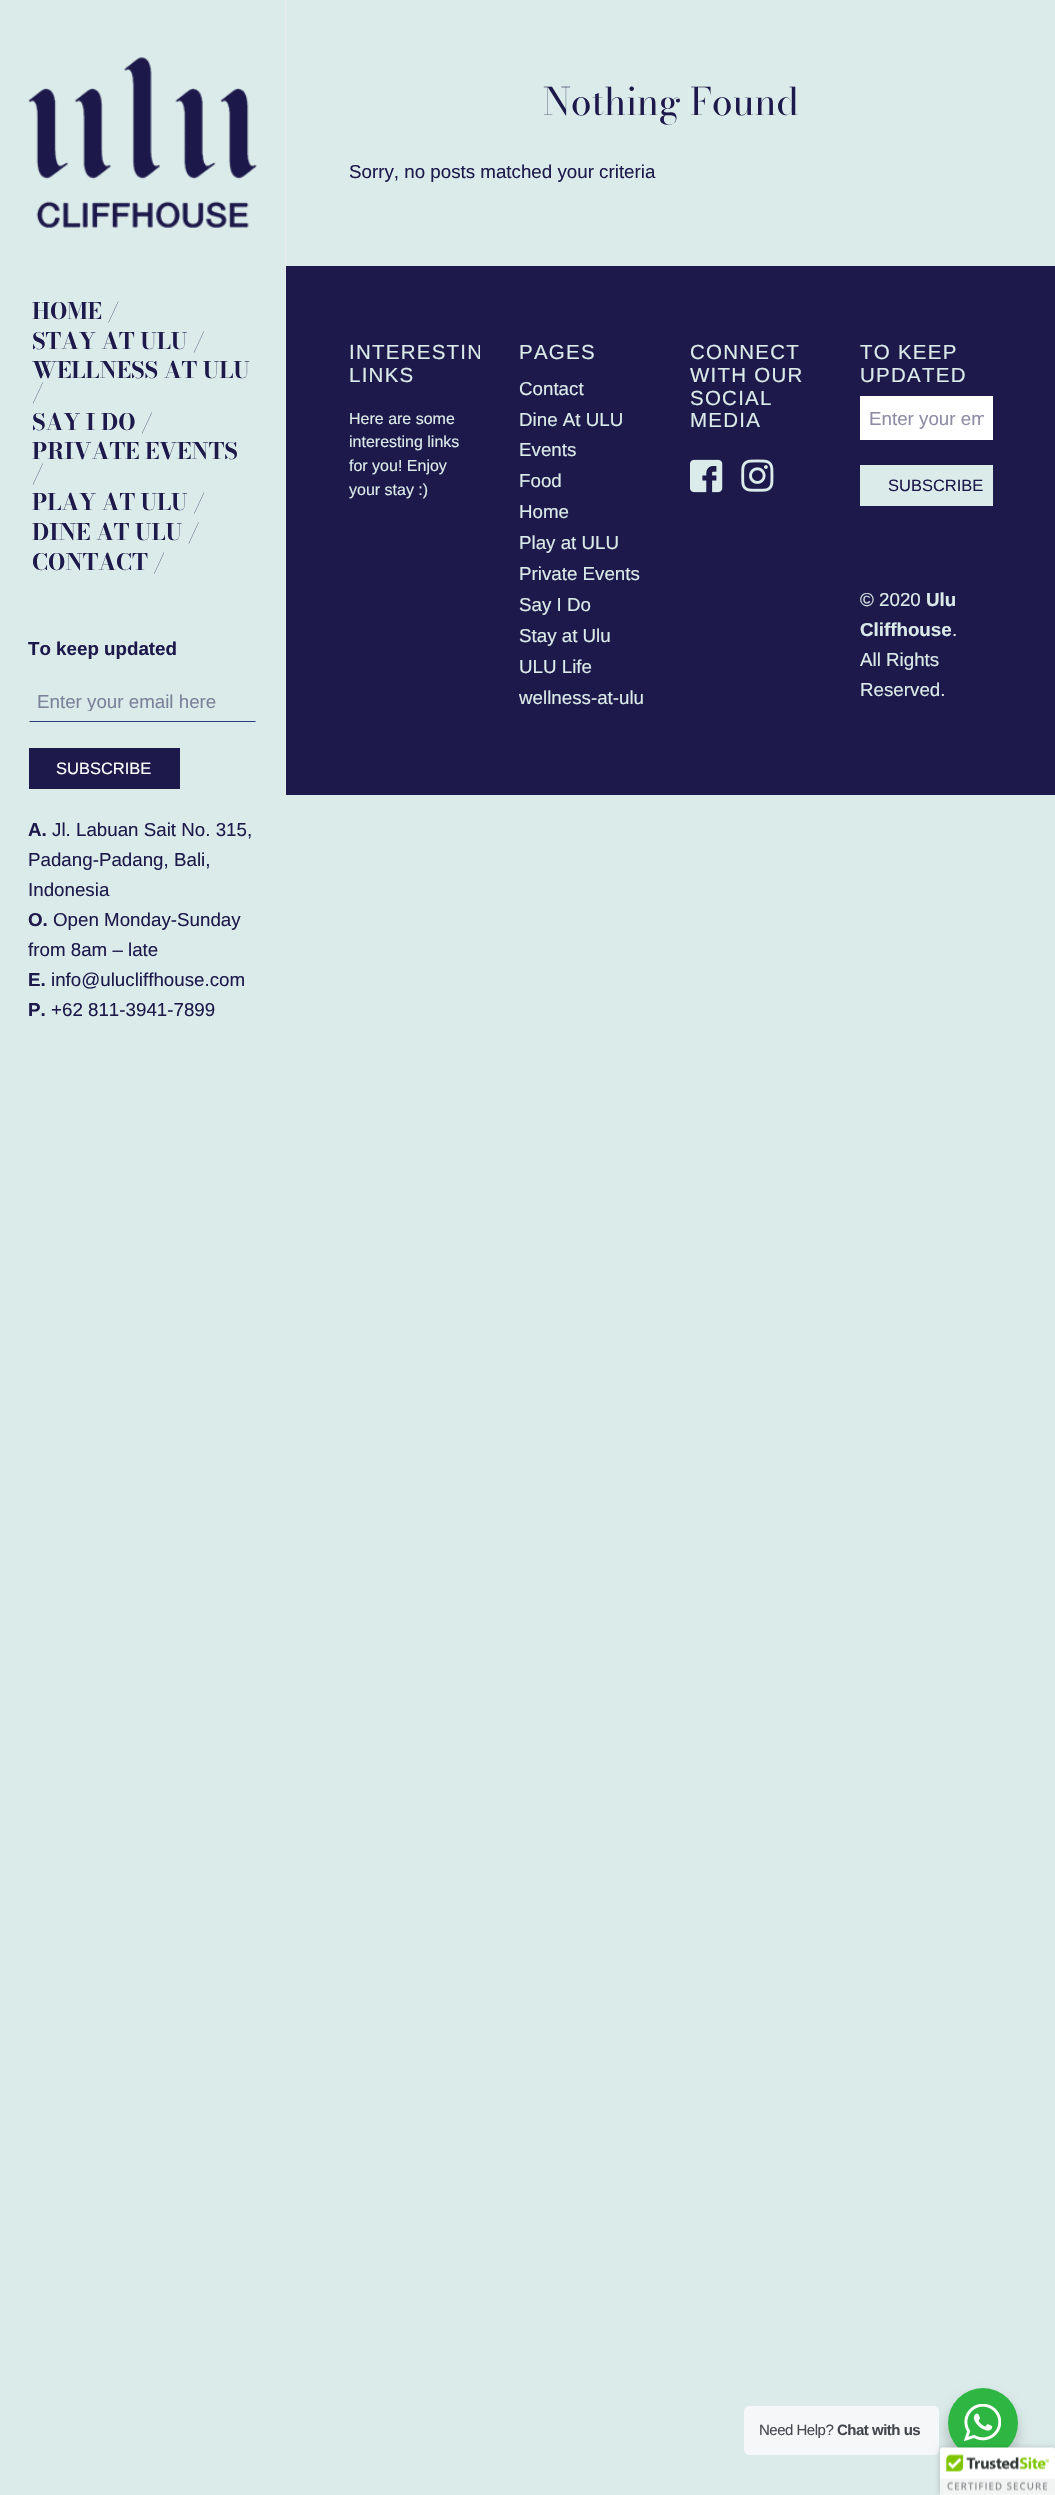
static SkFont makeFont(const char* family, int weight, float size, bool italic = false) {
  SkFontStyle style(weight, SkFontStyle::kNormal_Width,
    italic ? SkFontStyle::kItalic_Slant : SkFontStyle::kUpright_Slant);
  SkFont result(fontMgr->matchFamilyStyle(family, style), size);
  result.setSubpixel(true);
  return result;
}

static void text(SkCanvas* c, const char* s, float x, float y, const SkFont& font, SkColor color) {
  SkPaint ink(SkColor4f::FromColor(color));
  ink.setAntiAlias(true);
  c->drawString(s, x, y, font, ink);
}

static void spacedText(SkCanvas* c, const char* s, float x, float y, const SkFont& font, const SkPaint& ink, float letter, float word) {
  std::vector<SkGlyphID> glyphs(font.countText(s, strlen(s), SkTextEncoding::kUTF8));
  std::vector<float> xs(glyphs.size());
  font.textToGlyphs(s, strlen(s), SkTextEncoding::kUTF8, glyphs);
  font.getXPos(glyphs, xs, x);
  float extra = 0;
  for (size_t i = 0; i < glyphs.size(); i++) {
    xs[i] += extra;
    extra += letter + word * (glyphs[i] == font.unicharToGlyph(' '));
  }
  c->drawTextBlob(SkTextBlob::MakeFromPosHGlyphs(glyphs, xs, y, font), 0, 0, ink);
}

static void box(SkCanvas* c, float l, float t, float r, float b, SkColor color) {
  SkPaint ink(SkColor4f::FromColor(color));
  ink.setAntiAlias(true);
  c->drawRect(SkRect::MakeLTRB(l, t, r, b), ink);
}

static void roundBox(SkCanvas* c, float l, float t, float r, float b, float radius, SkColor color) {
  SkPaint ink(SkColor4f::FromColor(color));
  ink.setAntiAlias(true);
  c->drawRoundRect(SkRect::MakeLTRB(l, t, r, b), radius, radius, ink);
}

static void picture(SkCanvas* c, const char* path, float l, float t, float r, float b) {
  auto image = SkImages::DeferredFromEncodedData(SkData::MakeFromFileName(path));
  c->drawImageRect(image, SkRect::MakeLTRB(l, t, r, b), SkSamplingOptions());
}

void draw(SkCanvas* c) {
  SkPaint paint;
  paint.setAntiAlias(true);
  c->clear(0xffdbebe9);
  picture(c, "img_01.png", 28, 57, 257, 228);
  SkFont face1 = makeFont("Bodoni Moda", 700, 22.5f);
  text(c, "HOME /", 32, 319, face1, 0xff1d194b);
  text(c, "STAY AT ULU /", 32, 349, face1, 0xff1d194b);
  text(c, "WELLNESS AT ULU", 32, 378, face1, 0xff1d194b);
  text(c, "/", 32, 400, face1, 0xff1d194b);
  text(c, "SAY I DO /", 32, 430, face1, 0xff1d194b);
  text(c, "PRIVATE EVENTS", 32, 459, face1, 0xff1d194b);
  text(c, "/", 32, 481, face1, 0xff1d194b);
  text(c, "PLAY AT ULU /", 32, 510, face1, 0xff1d194b);
  text(c, "DINE AT ULU /", 32, 540, face1, 0xff1d194b);
  text(c, "CONTACT /", 32, 570, face1, 0xff1d194b);
  SkFont face2 = makeFont("Liberation Sans", 700, 18.75f);
  text(c, "To keep updated", 28, 655, face2, 0xff1d194b);
  paint.setColor(0xff2a3b7a);
  c->drawPath(SkPathBuilder().moveTo(256, 722).lineTo(29, 722).lineTo(30, 721).lineTo(255, 721).close().detach(), paint);
  c->save();
  c->clipRect(SkRect::MakeLTRB(38, 690, 248, 711));
  SkFont face3 = makeFont("Liberation Sans", 400, 18.75f);
  text(c, "Enter your email here", 37, 708, face3, 0xff7c829a);
  c->restore();
  box(c, 29, 748, 180, 789, 0xff1d194b);
  SkFont face4 = makeFont("Liberation Sans", 400, 16.5f);
  text(c, "SUBSCRIBE", 56, 774, face4, 0xffffffff);
  text(c, "A.", 28, 836, face2, 0xff1d194b);
  text(c, "Jl. Labuan Sait No. 315,", 52, 836, face3, 0xff1d194b);
  text(c, "Padang-Padang, Bali,", 28, 866, face3, 0xff1d194b);
  text(c, "Indonesia", 28, 896, face3, 0xff1d194b);
  text(c, "O.", 28, 926, face2, 0xff1d194b);
  text(c, "Open Monday-Sunday", 53, 926, face3, 0xff1d194b);
  text(c, "from 8am – late", 28, 956, face3, 0xff1d194b);
  text(c, "E.", 28, 986, face2, 0xff1d194b);
  text(c, "info@ulucliffhouse.com", 51, 986, face3, 0xff1d194b);
  text(c, "P.", 28, 1016, face2, 0xff1d194b);
  text(c, "+62 811-3941-7899", 51, 1016, face3, 0xff1d194b);
  box(c, 285, 0, 286, 795, 0xffebebeb);
  SkFont face5 = makeFont("Bodoni Moda", 400, 37.5f);
  text(c, "Nothing Found", 543, 115, face5, 0xff1d194b);
  text(c, "Sorry, no posts matched your criteria", 349, 178, face3, 0xff1d194b);
  box(c, 286, 266, 1055, 795, 0xff1d194b);
  c->save();
  c->clipRect(SkRect::MakeLTRB(349, 324, 480, 501));
  SkFont face6 = makeFont("Liberation Sans", 400, 20.5f);
  paint.setColor(0xffdbebe9);
  spacedText(c, "INTERESTIN", 349, 359, face6, paint, 1.25f, 0);
  c->restore();
  spacedText(c, "LINKS", 349, 382, face6, paint, 1.25f, 0);
  SkFont face7 = makeFont("Liberation Sans", 400, 16);
  text(c, "Here are some", 349, 424, face7, 0xffdbebe9);
  text(c, "interesting links", 349, 447, face7, 0xffdbebe9);
  text(c, "for you! Enjoy", 349, 471, face7, 0xffdbebe9);
  text(c, "your stay :)", 349, 495, face7, 0xffdbebe9);
  spacedText(c, "PAGES", 519, 359, face6, paint, 1.25f, 0);
  text(c, "Contact", 519, 395, face3, 0xffdbebe9);
  text(c, "Dine At ULU", 519, 426, face3, 0xffdbebe9);
  text(c, "Events", 519, 456, face3, 0xffdbebe9);
  text(c, "Food", 519, 487, face3, 0xffdbebe9);
  text(c, "Home", 519, 518, face3, 0xffdbebe9);
  text(c, "Play at ULU", 519, 549, face3, 0xffdbebe9);
  text(c, "Private Events", 519, 580, face3, 0xffdbebe9);
  text(c, "Say I Do", 519, 611, face3, 0xffdbebe9);
  text(c, "Stay at Ulu", 519, 642, face3, 0xffdbebe9);
  text(c, "ULU Life", 519, 673, face3, 0xffdbebe9);
  text(c, "wellness-at-ulu", 519, 704, face3, 0xffdbebe9);
  spacedText(c, "CONNECT", 690, 359, face6, paint, 1.25f, 0);
  spacedText(c, "WITH OUR", 690, 382, face6, paint, 1.25f, 0);
  spacedText(c, "SOCIAL", 690, 405, face6, paint, 1.25f, 0);
  spacedText(c, "MEDIA", 690, 427, face6, paint, 1.25f, 0);
  picture(c, "img_02.png", 690, 459, 723, 493);
  picture(c, "img_03.png", 741, 459, 774, 492);
  spacedText(c, "TO KEEP", 860, 359, face6, paint, 1.25f, 0);
  spacedText(c, "UPDATED", 860, 382, face6, paint, 1.25f, 0);
  box(c, 860, 396, 993, 440, 0xffffffff);
  c->save();
  c->clipRect(SkRect::MakeLTRB(869, 408, 984, 429));
  text(c, "Enter your em", 869, 425, face3, 0xff8e8ca5);
  c->restore();
  box(c, 860, 465, 993, 506, 0xffdbebe9);
  text(c, "SUBSCRIBE", 888, 491, face4, 0xff1d194b);
  text(c, "© 2020", 860, 606, face3, 0xffdbebe9);
  text(c, "Ulu", 926, 606, face2, 0xffdbebe9);
  text(c, "Cliffhouse", 860, 636, face2, 0xffdbebe9);
  text(c, ".", 952, 636, face3, 0xffdbebe9);
  text(c, "All Rights", 860, 666, face3, 0xffdbebe9);
  text(c, "Reserved.", 860, 696, face3, 0xffdbebe9);
  paint.setColor(0x24000000);
  paint.setMaskFilter(SkMaskFilter::MakeBlur(kNormal_SkBlurStyle, 5));
  c->drawRoundRect(SkRect::MakeLTRB(945, 2393, 1020, 2468), 37.5f, 37.5f, paint);
  paint.setMaskFilter(nullptr);
  roundBox(c, 744, 2406, 939, 2455, 5, 0xfff5f7f9);
  SkFont face8 = makeFont("Liberation Sans", 400, 15);
  paint.setColor(0xff43474e);
  spacedText(c, "Need Help?", 759, 2435, face8, paint, -0.5f, 0);
  SkFont face9 = makeFont("Liberation Sans", 700, 15);
  spacedText(c, "Chat with us", 837, 2435, face9, paint, -0.5f, 0);
  paint.setColor(0xff2db742);
  c->drawCircle(983, 2423, 35, paint);
  picture(c, "img_04.png", 964, 2404, 1001, 2441);
  paint.setColor(0x33000000);
  paint.setMaskFilter(SkMaskFilter::MakeBlur(kNormal_SkBlurStyle, 3));
  c->drawRoundRect(SkRect::MakeLTRB(940, 2448, 1055, 2495), 2.5f, 2.5f, paint);
  paint.setMaskFilter(nullptr);
  paint.setColor(0xffffffff);
  c->drawPath(SkPathBuilder().moveTo(942.5f, 2448).lineTo(1055, 2448).lineTo(1055, 2495).lineTo(940, 2495).lineTo(940, 2450.5f).cubicTo(940, 2449, 941, 2448, 942.5f, 2448).close().detach(), paint);
  picture(c, "img_05.png", 940, 2447, 1055, 2495);
}
